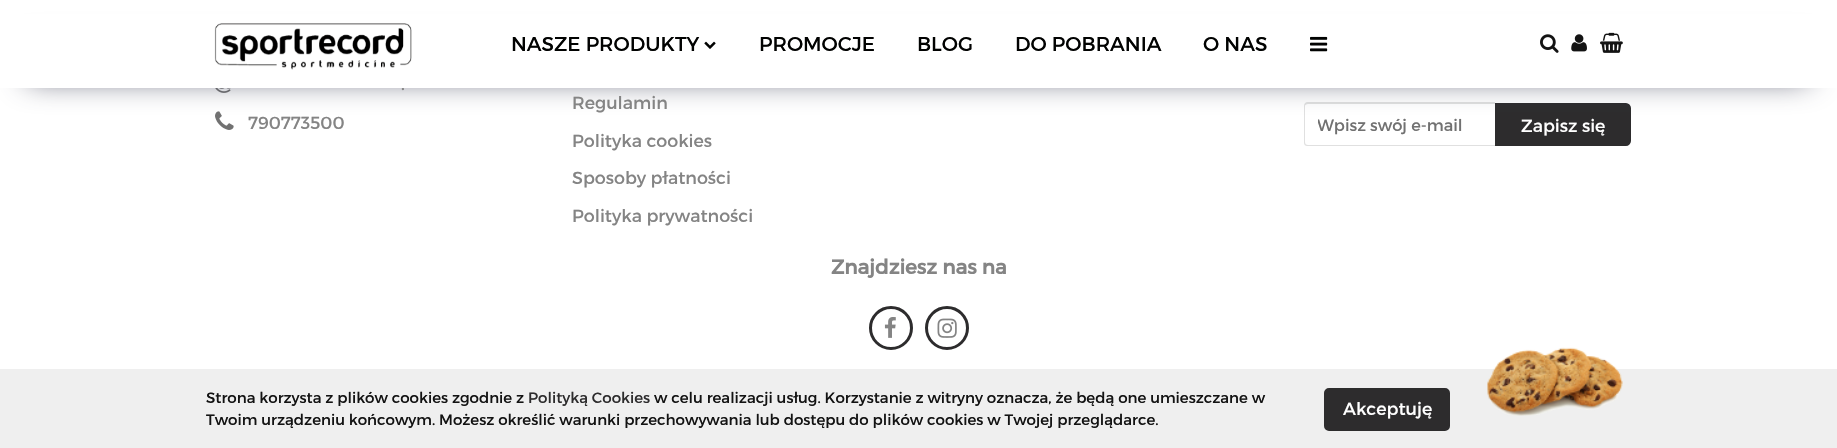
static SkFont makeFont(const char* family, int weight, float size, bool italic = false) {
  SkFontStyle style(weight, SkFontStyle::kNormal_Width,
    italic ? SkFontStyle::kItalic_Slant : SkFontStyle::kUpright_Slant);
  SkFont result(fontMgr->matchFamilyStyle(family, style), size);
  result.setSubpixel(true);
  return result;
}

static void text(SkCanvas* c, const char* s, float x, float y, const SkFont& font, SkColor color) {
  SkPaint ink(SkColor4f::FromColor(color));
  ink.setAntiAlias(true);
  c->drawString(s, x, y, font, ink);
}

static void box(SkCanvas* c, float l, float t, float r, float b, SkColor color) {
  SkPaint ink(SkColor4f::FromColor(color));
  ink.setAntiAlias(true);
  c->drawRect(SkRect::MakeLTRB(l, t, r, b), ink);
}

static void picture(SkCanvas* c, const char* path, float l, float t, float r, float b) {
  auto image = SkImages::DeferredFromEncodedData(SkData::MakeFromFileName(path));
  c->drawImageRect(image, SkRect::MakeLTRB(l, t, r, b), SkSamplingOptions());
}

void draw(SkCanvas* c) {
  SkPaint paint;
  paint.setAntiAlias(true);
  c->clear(0xffffffff);
  picture(c, "img_07.png", 215, 88, 231, 93);
  picture(c, "img_08.png", 215, 111, 234, 130);
  paint.setColor(0xffe0e0e0);
  c->drawPath(SkPathBuilder(SkPathFillType::kEvenOdd).moveTo(1308, 102).lineTo(1495, 102).lineTo(1495, 146).lineTo(1308, 146).cubicTo(1305, 146, 1304, 145, 1304, 142).lineTo(1304, 106).cubicTo(1304, 104, 1305, 102, 1308, 102).close().moveTo(1308, 104).lineTo(1495, 104).lineTo(1495, 145).lineTo(1308, 145).cubicTo(1306, 145, 1305, 144, 1305, 142).lineTo(1305, 106).cubicTo(1305, 105, 1306, 104, 1308, 104).close().detach(), paint);
  paint.setColor(0xff2d2c2d);
  c->drawPath(SkPathBuilder().moveTo(1497, 105).lineTo(1626, 105).cubicTo(1627.5f, 105, 1629, 106.5f, 1629, 108).lineTo(1629, 141).cubicTo(1629, 142.5f, 1627.5f, 144, 1626, 144).lineTo(1497, 144).close().detach(), paint);
  paint.setStyle(SkPaint::kStroke_Style);
  paint.setStrokeWidth(4);
  c->drawPath(SkPathBuilder().moveTo(1497, 105).lineTo(1626, 105).cubicTo(1627.5f, 105, 1629, 106.5f, 1629, 108).lineTo(1629, 141).cubicTo(1629, 142.5f, 1627.5f, 144, 1626, 144).lineTo(1497, 144).close().detach(), paint);
  paint.setStyle(SkPaint::kFill_Style);
  paint.setColor(0xff42445a);
  paint.setMaskFilter(SkMaskFilter::MakeBlur(kNormal_SkBlurStyle, 15.5f));
  c->drawRect(SkRect::MakeLTRB(28, 48, 1808, 78), paint);
  paint.setMaskFilter(nullptr);
  SkFont face1 = makeFont("Montserrat", 400, 17.5f);
  text(c, ".", 401, 90, face1, 0xff848484);
  box(c, 0, 14, 1837, 88, 0xffffffff);
  picture(c, "img_01.png", 214, 23, 412, 70);
  SkFont face2 = makeFont("Montserrat", 400, 20);
  text(c, "NASZE PRODUKTY", 511, 51, face2, 0xff010201);
  picture(c, "img_02.png", 704, 41, 716, 49);
  text(c, "PROMOCJE", 759, 51, face2, 0xff010201);
  text(c, "BLOG", 917, 51, face2, 0xff010201);
  text(c, "DO POBRANIA", 1015, 51, face2, 0xff010201);
  text(c, "O NAS", 1203, 51, face2, 0xff010201);
  picture(c, "img_03.png", 1310, 36, 1328, 52);
  picture(c, "img_04.png", 1540, 34, 1559, 53);
  picture(c, "img_05.png", 1571, 34, 1587, 52);
  picture(c, "img_06.png", 1600, 32, 1623, 53);
  text(c, "790773500", 248, 129, face1, 0xff848484);
  text(c, "Regulamin", 572, 109, face1, 0xff848484);
  text(c, "Polityka cookies", 572, 147, face1, 0xff848484);
  text(c, "Sposoby płatności", 572, 184, face1, 0xff848484);
  text(c, "Polityka prywatności", 572, 222, face1, 0xff848484);
  c->save();
  c->clipRect(SkRect::MakeLTRB(1318, 115, 1483, 135));
  SkFont face3 = makeFont("Montserrat", 400, 16.25f);
  text(c, "Wpisz swój e-mail", 1317, 131, face3, 0xff717171);
  c->restore();
  text(c, "Zapisz się", 1521, 132, face1, 0xffffffff);
  SkFont face4 = makeFont("Montserrat", 700, 20);
  text(c, "Znajdziesz nas na", 831, 274, face4, 0xff848484);
  paint.setStyle(SkPaint::kStroke_Style);
  paint.setStrokeWidth(3);
  paint.setColor(0xff2d2c2d);
  c->drawCircle(891, 328, 20.5f, paint);
  picture(c, "img_09.png", 884, 317, 896, 338);
  c->drawCircle(947, 328, 20.5f, paint);
  picture(c, "img_10.png", 937, 318, 957, 338);
  box(c, 0, 369, 1837, 448, 0xffefefef);
  SkFont face5 = makeFont("Montserrat", 400, 15);
  text(c, "Strona korzysta z plików cookies zgodnie z", 206, 403, face5, 0xff131313);
  text(c, "Polityką Cookies", 528, 403, face5, 0xff2d2c2d);
  text(c, "w celu realizacji usług. Korzystanie z witryny oznacza, że będą one umieszczane w", 654, 403, face5, 0xff131313);
  text(c, "Twoim urządzeniu końcowym. Możesz określić warunki przechowywania lub dostępu do plików cookies w Twojej przeglądarce.", 206, 425, face5, 0xff131313);
  paint.setStyle(SkPaint::kFill_Style);
  c->drawRoundRect(SkRect::MakeLTRB(1326, 390, 1448, 429), 3, 3, paint);
  paint.setStyle(SkPaint::kStroke_Style);
  paint.setStrokeWidth(4);
  c->drawRoundRect(SkRect::MakeLTRB(1326, 390, 1448, 429), 3, 3, paint);
  text(c, "Akceptuję", 1343, 415, face1, 0xffffffff);
  picture(c, "img_11.png", 1487, 347, 1623, 416);
}
